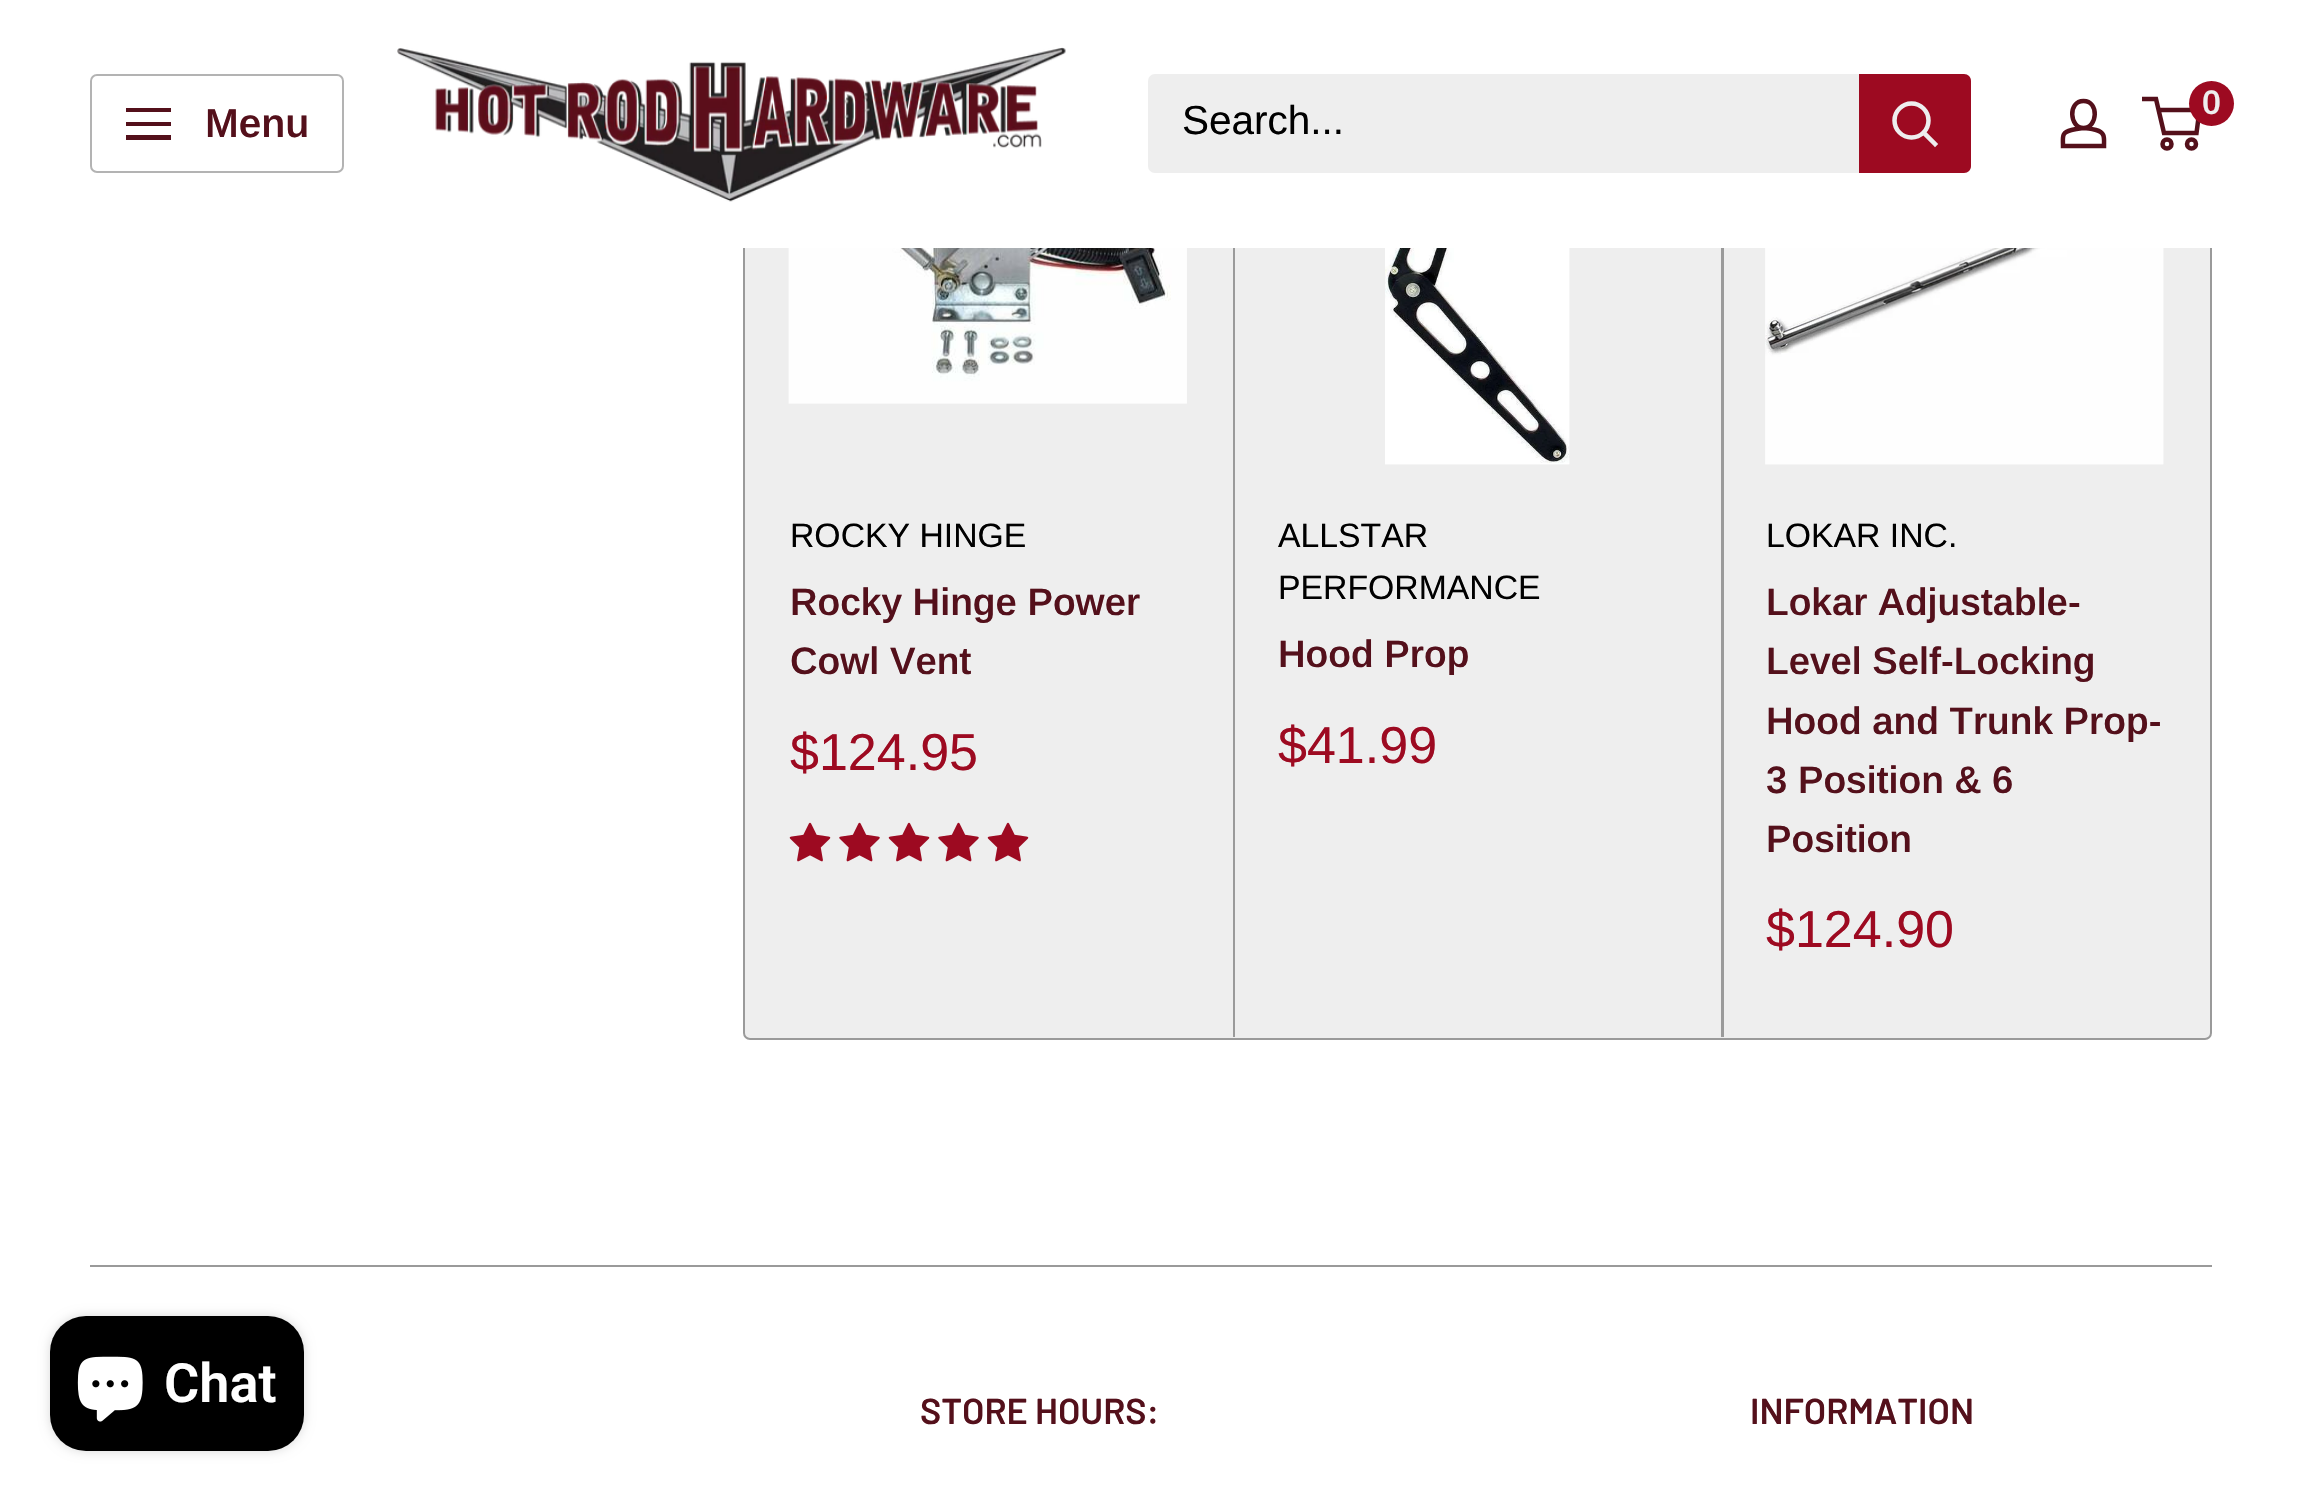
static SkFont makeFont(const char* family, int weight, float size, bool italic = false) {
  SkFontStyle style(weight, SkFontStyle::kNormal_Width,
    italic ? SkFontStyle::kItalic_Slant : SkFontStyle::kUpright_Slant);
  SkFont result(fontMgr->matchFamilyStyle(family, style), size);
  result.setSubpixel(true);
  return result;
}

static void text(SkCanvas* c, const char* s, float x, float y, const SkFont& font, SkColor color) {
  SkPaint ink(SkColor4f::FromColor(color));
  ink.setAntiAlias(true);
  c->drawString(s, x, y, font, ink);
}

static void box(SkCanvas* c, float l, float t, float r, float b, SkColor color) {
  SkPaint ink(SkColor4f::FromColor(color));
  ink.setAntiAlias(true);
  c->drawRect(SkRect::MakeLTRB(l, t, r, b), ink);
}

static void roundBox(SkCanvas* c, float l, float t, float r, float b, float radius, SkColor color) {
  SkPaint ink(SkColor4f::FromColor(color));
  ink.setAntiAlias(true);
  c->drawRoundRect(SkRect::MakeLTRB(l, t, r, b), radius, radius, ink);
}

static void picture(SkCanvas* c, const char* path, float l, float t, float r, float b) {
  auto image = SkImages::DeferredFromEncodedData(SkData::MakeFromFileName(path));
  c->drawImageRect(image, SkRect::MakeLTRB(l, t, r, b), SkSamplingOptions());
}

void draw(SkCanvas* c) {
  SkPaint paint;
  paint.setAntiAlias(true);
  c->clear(0xffffffff);
  paint.setColor(0xffeeeeee);
  c->drawRoundRect(SkRect::MakeLTRB(744, -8, 2211, 1039), 6, 6, paint);
  paint.setStyle(SkPaint::kStroke_Style);
  paint.setStrokeWidth(2);
  paint.setColor(0xff9a9a9a);
  c->drawRoundRect(SkRect::MakeLTRB(744, -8, 2211, 1039), 6, 6, paint);
  paint.setStyle(SkPaint::kFill_Style);
  c->drawPath(SkPathBuilder().moveTo(752, 20).lineTo(1235, 20).lineTo(1235, 1037).lineTo(1233, 1037).lineTo(1233, 20).lineTo(750, 20).close().detach(), paint);
  c->drawPath(SkPathBuilder().moveTo(1235, 20).lineTo(1724, 20).lineTo(1724, 1037).lineTo(1721, 1037).lineTo(1721, 20).close().detach(), paint);
  box(c, 743, 0, 2212, 248, 0xffffffff);
  paint.setStyle(SkPaint::kStroke_Style);
  paint.setColor(0xffb3b3b3);
  c->drawRoundRect(SkRect::MakeLTRB(91, 75, 343, 172), 6, 6, paint);
  paint.setStyle(SkPaint::kFill_Style);
  paint.setColor(0xff54101b);
  c->drawPath(SkPathBuilder(SkPathFillType::kEvenOdd).moveTo(126, 135).lineTo(171, 135).lineTo(171, 140).lineTo(126, 140).close().moveTo(126, 108).lineTo(171, 108).lineTo(171, 112).lineTo(126, 112).close().moveTo(126, 122).lineTo(171, 122).lineTo(171, 126).lineTo(126, 126).close().detach(), paint);
  SkFont face1 = makeFont("Arimo", 600, 40.5f);
  text(c, "Menu", 205, 137, face1, 0xff54101b);
  picture(c, "img_01.png", 397, 47, 1066, 202);
  roundBox(c, 1148, 74, 1971, 173, 7, 0xffeeeeee);
  SkFont face2 = makeFont("Arimo", 400, 40.5f);
  text(c, "Search...", 1182, 134, face2, 0xff000000);
  paint.setColor(0xff9d0a21);
  c->drawPath(SkPathBuilder().moveTo(1859, 74).lineTo(1964, 74).cubicTo(1968, 74, 1971, 77, 1971, 81).lineTo(1971, 166).cubicTo(1971, 170, 1968, 173, 1964, 173).lineTo(1859, 173).close().detach(), paint);
  paint.setStyle(SkPaint::kStroke_Style);
  paint.setStrokeWidth(4.5f);
  paint.setStrokeCap(SkPaint::kSquare_Cap);
  paint.setColor(0xffeeeeee);
  c->drawPath(SkPathBuilder().moveTo(1935, 144).lineTo(1924, 133).detach(), paint);
  paint.setStrokeCap(SkPaint::kButt_Cap);
  c->drawCircle(1911.5f, 120.5f, 17, paint);
  paint.setColor(0xff54101b);
  c->drawPath(SkPathBuilder().moveTo(2083.5f, 128).cubicTo(2087.5f, 128, 2092, 129, 2096, 130).cubicTo(2105.5f, 132.5f, 2104, 138, 2104, 146).lineTo(2063, 146).cubicTo(2063, 137, 2061, 132.5f, 2071.5f, 130).cubicTo(2075.5f, 129, 2079.5f, 128.5f, 2083.5f, 128).close().moveTo(2083.5f, 128).cubicTo(2069.5f, 128, 2067.5f, 101, 2083.5f, 101).cubicTo(2099.5f, 101, 2097.5f, 128, 2083.5f, 128).close().detach(), paint);
  c->drawCircle(2167, 144, 4.5f, paint);
  c->drawCircle(2191.5f, 144, 4.5f, paint);
  c->drawPath(SkPathBuilder().moveTo(2158.5f, 110).lineTo(2199.5f, 110).lineTo(2196.5f, 133).lineTo(2164, 133).lineTo(2156, 99).lineTo(2142, 99).detach(), paint);
  paint.setStyle(SkPaint::kFill_Style);
  paint.setColor(0xff9d0a21);
  c->drawCircle(2211.5f, 103.5f, 22.5f, paint);
  SkFont face3 = makeFont("Arimo", 600, 34);
  text(c, "0", 2202, 114, face3, 0xffeeeeee);
  picture(c, "img_02.png", 788, 248, 1187, 404);
  SkFont face4 = makeFont("Arimo", 400, 33.75f);
  text(c, "ROCKY HINGE", 790, 547, face4, 0xff000000);
  SkFont face5 = makeFont("Arimo", 600, 38.25f);
  text(c, "Rocky Hinge Power", 790, 615, face5, 0xff54101b);
  text(c, "Cowl Vent", 790, 674, face5, 0xff54101b);
  SkFont face6 = makeFont("Arimo", 400, 52);
  text(c, "$124.95", 790, 770, face6, 0xff9d0a21);
  picture(c, "img_03.png", 789, 822, 831, 862);
  picture(c, "img_04.png", 839, 822, 880, 862);
  picture(c, "img_03.png", 888, 822, 930, 862);
  picture(c, "img_04.png", 938, 822, 979, 862);
  picture(c, "img_03.png", 987, 822, 1029, 862);
  picture(c, "img_05.png", 1385, 248, 1570, 465);
  text(c, "ALLSTAR", 1278, 547, face4, 0xff000000);
  text(c, "PERFORMANCE", 1278, 599, face4, 0xff000000);
  text(c, "Hood Prop", 1278, 667, face5, 0xff54101b);
  text(c, "$41.99", 1278, 763, face6, 0xff9d0a21);
  picture(c, "img_06.png", 1765, 248, 2164, 465);
  text(c, "LOKAR INC.", 1766, 547, face4, 0xff000000);
  text(c, "Lokar Adjustable-", 1766, 615, face5, 0xff54101b);
  text(c, "Level Self-Locking", 1766, 674, face5, 0xff54101b);
  text(c, "Hood and Trunk Prop-", 1766, 734, face5, 0xff54101b);
  text(c, "3 Position & 6", 1766, 793, face5, 0xff54101b);
  text(c, "Position", 1766, 852, face5, 0xff54101b);
  text(c, "$124.90", 1766, 947, face6, 0xff9d0a21);
  paint.setColor(0x26000000);
  paint.setMaskFilter(SkMaskFilter::MakeBlur(kNormal_SkBlurStyle, 5.5f));
  c->drawRoundRect(SkRect::MakeLTRB(50, 1316, 304, 1451), 36, 36, paint);
  paint.setMaskFilter(nullptr);
  roundBox(c, 50, 1316, 304, 1451, 36, 0xff000000);
  picture(c, "img_07.png", 77, 1356, 143, 1422);
  SkFont face7 = makeFont("Roboto", 600, 54);
  text(c, "Chat", 164, 1402, face7, 0xffffffff);
  box(c, 90, 1265, 2212, 1267, 0xff9a9a9a);
  SkFont face8 = makeFont("Barlow", 600, 36);
  text(c, "STORE HOURS:", 920, 1424, face8, 0xff54101b);
  text(c, "INFORMATION", 1750, 1424, face8, 0xff54101b);
}
